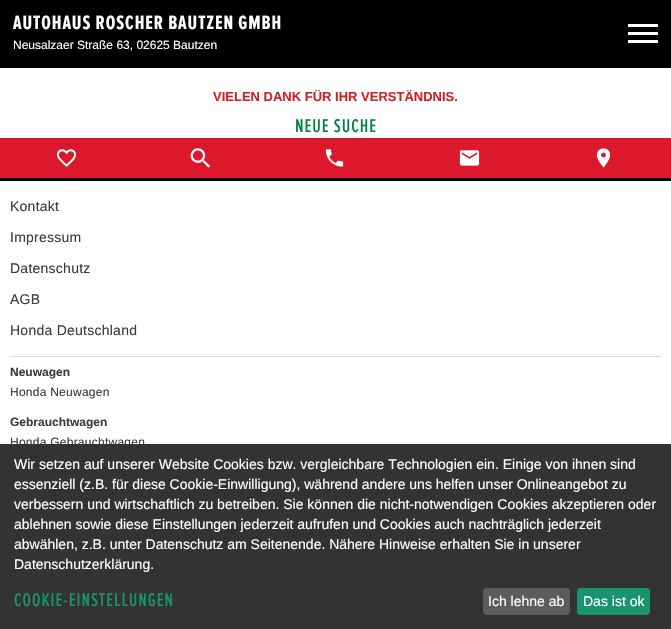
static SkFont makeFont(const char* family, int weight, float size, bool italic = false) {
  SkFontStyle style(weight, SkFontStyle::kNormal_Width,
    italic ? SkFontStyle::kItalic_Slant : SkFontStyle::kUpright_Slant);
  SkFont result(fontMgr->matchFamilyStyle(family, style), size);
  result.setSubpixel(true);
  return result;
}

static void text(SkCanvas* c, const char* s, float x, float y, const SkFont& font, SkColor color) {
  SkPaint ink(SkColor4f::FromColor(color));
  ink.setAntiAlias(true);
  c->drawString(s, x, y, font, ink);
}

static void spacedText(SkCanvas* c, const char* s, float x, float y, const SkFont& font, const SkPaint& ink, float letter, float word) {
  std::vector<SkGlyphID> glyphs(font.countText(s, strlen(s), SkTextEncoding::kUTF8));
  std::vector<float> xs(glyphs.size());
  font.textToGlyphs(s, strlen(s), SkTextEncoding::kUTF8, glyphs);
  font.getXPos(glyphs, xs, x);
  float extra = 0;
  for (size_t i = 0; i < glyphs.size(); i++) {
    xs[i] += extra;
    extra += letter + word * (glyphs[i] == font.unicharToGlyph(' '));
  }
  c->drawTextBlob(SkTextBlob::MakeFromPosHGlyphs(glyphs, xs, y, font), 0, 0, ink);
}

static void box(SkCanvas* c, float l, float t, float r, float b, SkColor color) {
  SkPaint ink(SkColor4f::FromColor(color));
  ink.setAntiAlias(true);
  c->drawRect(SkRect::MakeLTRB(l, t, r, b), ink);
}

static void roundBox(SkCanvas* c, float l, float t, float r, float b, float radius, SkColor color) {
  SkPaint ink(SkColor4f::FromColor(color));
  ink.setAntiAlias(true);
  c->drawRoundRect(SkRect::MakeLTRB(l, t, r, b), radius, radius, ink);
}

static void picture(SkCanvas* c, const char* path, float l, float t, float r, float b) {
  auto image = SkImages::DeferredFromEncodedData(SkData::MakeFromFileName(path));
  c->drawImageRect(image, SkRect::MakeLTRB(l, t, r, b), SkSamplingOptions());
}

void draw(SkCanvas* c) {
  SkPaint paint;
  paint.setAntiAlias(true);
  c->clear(0xffffffff);
  box(c, 0, 0, 671, 68, 0xff000000);
  SkFont face1 = makeFont("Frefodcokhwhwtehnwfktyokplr", 700, 20);
  paint.setColor(0xffffffff);
  spacedText(c, "AUTOHAUS ROSCHER BAUTZEN GMBH", 13, 29, face1, paint, 0.95f, 0);
  SkFont face2 = makeFont("Liberation Sans", 400, 12);
  text(c, "Neusalzaer Straße 63, 02625 Bautzen", 13, 49, face2, 0xffffffff);
  box(c, 628, 32, 658, 35, 0xffffffff);
  box(c, 628, 24, 658, 27, 0xffffffff);
  box(c, 628, 40, 658, 43, 0xffffffff);
  SkFont face3 = makeFont("Liberation Sans", 700, 13);
  text(c, "VIELEN DANK FÜR IHR VERSTÄNDNIS.", 213, 101, face3, 0xffcf2227);
  SkFont face4 = makeFont("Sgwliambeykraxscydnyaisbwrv", 500, 19);
  paint.setColor(0xff00803e);
  spacedText(c, "NEUE SUCHE", 295, 132, face4, paint, 0.95f, 0);
  box(c, 0, 138, 671, 178, 0xffdc182d);
  picture(c, "img_01.png", 56, 149, 77, 167);
  picture(c, "img_02.png", 190, 148, 211, 168);
  picture(c, "img_03.png", 325, 149, 344, 167);
  picture(c, "img_04.png", 459, 150, 480, 166);
  picture(c, "img_05.png", 596, 148, 611, 168);
  box(c, 0, 178, 671, 181, 0xff000000);
  SkFont face5 = makeFont("Liberation Sans", 400, 14);
  paint.setColor(0xff3b3b3b);
  spacedText(c, "Kontakt", 10, 211, face5, paint, 0.25f, 0);
  spacedText(c, "Impressum", 10, 242, face5, paint, 0.25f, 0);
  spacedText(c, "Datenschutz", 10, 273, face5, paint, 0.25f, 0);
  spacedText(c, "AGB", 10, 304, face5, paint, 0.25f, 0);
  spacedText(c, "Honda Deutschland", 10, 335, face5, paint, 0.25f, 0);
  box(c, 10, 356, 661, 357, 0xffdddddd);
  SkFont face6 = makeFont("Liberation Sans", 700, 12);
  text(c, "Neuwagen", 10, 376, face6, 0xff3b3b3b);
  spacedText(c, "Honda Neuwagen", 10, 396, face2, paint, 0.25f, 0);
  text(c, "Gebrauchtwagen", 10, 426, face6, 0xff3b3b3b);
  spacedText(c, "Honda Gebrauchtwagen", 10, 446, face2, paint, 0.25f, 0);
  box(c, 0, 444, 671, 629, 0xff333333);
  text(c, "Wir setzen auf unserer Website Cookies bzw. vergleichbare Technologien ein. Einige von ihnen sind", 14, 469, face5, 0xffffffff);
  text(c, "essenziell (z.B. für diese Cookie-Einwilligung), während andere uns helfen unser Onlineangebot zu", 14, 489, face5, 0xffffffff);
  text(c, "verbessern und wirtschaftlich zu betreiben. Sie können die nicht-notwendigen Cookies akzeptieren oder", 14, 509, face5, 0xffffffff);
  text(c, "ablehnen sowie diese Einstellungen jederzeit aufrufen und Cookies auch nachträglich jederzeit", 14, 529, face5, 0xffffffff);
  text(c, "abwählen, z.B. unter Datenschutz am Seitenende. Nähere Hinweise erhalten Sie in unserer", 14, 549, face5, 0xffffffff);
  text(c, "Datenschutzerklärung.", 14, 569, face5, 0xffffffff);
  paint.setColor(0xff1a936f);
  spacedText(c, "COOKIE-EINSTELLUNGEN", 14, 606, face4, paint, 0.95f, 0);
  roundBox(c, 483, 588, 570, 615, 4, 0xff5c5c5c);
  text(c, "Ich lehne ab", 488, 606, face5, 0xffffffff);
  roundBox(c, 577, 588, 650, 615, 4, 0xff1a936f);
  text(c, "Das ist ok", 583, 606, face5, 0xffffffff);
}
